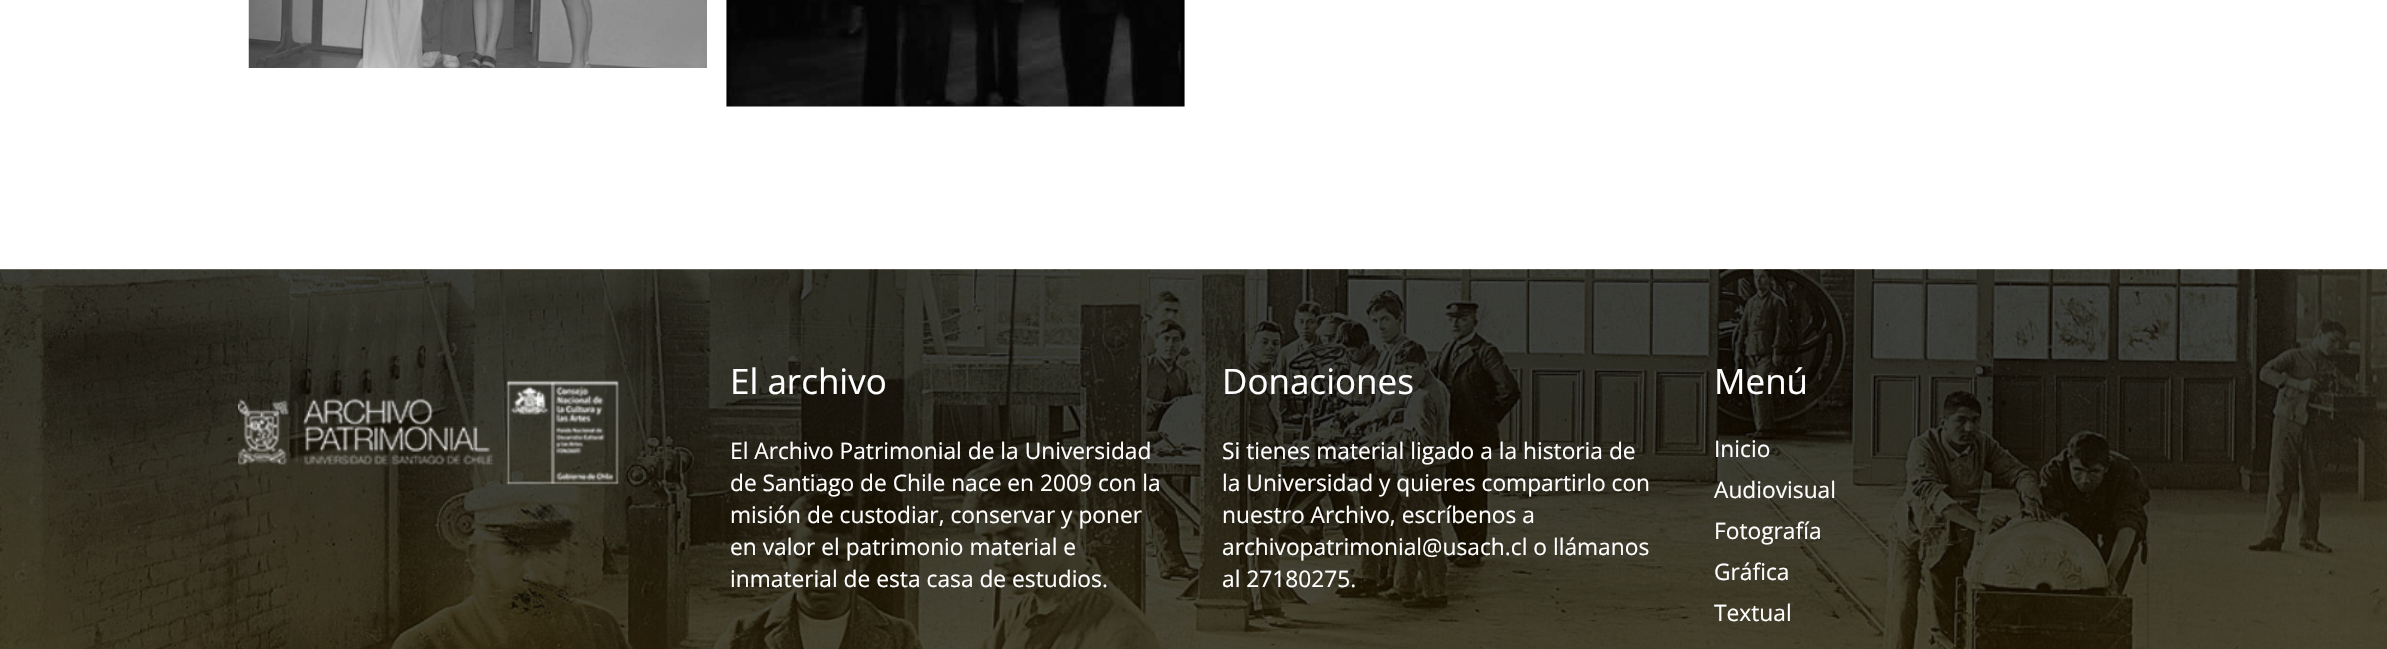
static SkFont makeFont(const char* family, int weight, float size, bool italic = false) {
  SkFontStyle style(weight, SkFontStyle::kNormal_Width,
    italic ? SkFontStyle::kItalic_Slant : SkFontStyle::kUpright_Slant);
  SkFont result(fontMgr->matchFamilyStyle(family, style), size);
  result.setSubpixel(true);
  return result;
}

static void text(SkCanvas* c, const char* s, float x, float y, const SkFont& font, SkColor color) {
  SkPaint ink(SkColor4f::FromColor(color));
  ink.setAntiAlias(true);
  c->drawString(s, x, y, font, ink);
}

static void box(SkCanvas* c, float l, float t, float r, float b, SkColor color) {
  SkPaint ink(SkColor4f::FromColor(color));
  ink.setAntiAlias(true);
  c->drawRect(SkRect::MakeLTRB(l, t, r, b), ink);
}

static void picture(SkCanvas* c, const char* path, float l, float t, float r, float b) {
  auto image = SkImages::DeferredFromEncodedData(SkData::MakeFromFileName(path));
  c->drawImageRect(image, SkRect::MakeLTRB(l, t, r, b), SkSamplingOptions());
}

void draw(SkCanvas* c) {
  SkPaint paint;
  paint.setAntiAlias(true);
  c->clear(0xffffffff);
  picture(c, "img_01.png", 248, 0, 707, 68);
  picture(c, "img_02.png", 726, 0, 1185, 107);
  picture(c, "img_03.png", 0, 269, 2387, 649);
  box(c, 672, 364, 674, 557, 0x1a000000);
  picture(c, "img_04.png", 238, 365, 619, 485);
  SkFont face1 = makeFont("Open Sans", 400, 35);
  text(c, "El archivo", 730, 394, face1, 0xffffffff);
  SkFont face2 = makeFont("Open Sans", 400, 22.75f);
  text(c, "El Archivo Patrimonial de la Universidad", 730, 459, face2, 0xffffffff);
  text(c, "de Santiago de Chile nace en 2009 con la", 730, 491, face2, 0xffffffff);
  text(c, "misión de custodiar, conservar y poner", 730, 523, face2, 0xffffffff);
  text(c, "en valor el patrimonio material e", 730, 555, face2, 0xffffffff);
  text(c, "inmaterial de esta casa de estudios.", 730, 587, face2, 0xffffffff);
  text(c, "Donaciones", 1222, 394, face1, 0xffffffff);
  text(c, "Si tienes material ligado a la historia de", 1222, 459, face2, 0xffffffff);
  text(c, "la Universidad y quieres compartirlo con", 1222, 491, face2, 0xffffffff);
  text(c, "nuestro Archivo, escríbenos a", 1222, 523, face2, 0xffffffff);
  text(c, "archivopatrimonial@usach.cl o llámanos", 1222, 555, face2, 0xffffffff);
  text(c, "al 27180275.", 1222, 587, face2, 0xffffffff);
  box(c, 2147, 364, 2149, 649, 0x1a000000);
  text(c, "Menú", 1714, 394, face1, 0xffffffff);
  text(c, "Inicio", 1714, 457, face2, 0xffffffff);
  text(c, "Audiovisual", 1714, 498, face2, 0xffffffff);
  text(c, "Fotografía", 1714, 539, face2, 0xffffffff);
  text(c, "Gráfica", 1714, 580, face2, 0xffffffff);
  text(c, "Textual", 1714, 621, face2, 0xffffffff);
}
